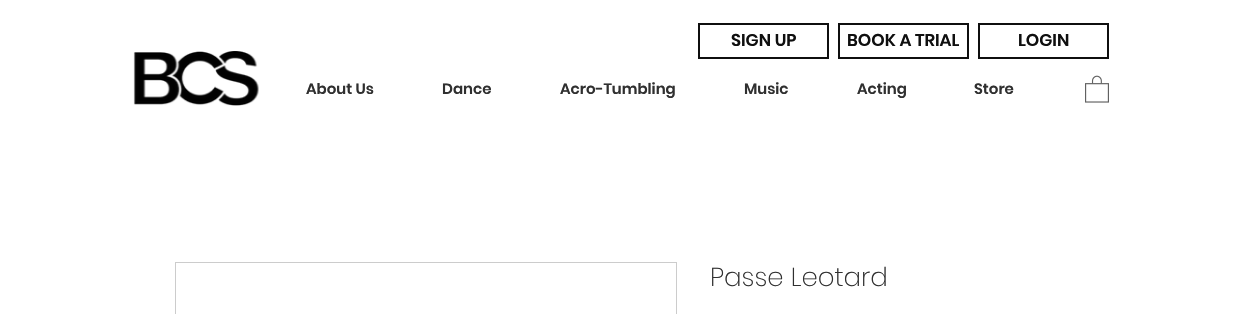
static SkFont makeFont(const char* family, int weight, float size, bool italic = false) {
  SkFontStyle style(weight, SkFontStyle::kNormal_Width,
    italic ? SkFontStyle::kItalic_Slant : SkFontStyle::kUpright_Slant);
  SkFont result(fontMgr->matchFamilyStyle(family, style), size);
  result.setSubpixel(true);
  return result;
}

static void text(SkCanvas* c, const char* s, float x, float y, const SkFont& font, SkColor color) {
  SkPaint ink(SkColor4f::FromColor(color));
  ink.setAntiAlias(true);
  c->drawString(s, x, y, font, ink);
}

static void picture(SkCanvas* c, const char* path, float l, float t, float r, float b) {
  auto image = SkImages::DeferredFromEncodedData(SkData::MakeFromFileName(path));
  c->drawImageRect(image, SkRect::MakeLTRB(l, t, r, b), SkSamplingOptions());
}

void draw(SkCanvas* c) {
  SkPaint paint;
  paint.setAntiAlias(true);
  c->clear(0xffffffff);
  paint.setStyle(SkPaint::kStroke_Style);
  paint.setStrokeWidth(2);
  paint.setColor(0xff0f0f0f);
  c->drawRect(SkRect::MakeLTRB(699, 24, 828, 58), paint);
  SkFont face1 = makeFont("Poppins", 600, 17);
  text(c, "SIGN UP", 731, 46, face1, 0xff0f0f0f);
  c->drawRect(SkRect::MakeLTRB(839, 24, 968, 58), paint);
  text(c, "BOOK A TRIAL", 847, 46, face1, 0xff0f0f0f);
  c->drawRect(SkRect::MakeLTRB(979, 24, 1108, 58), paint);
  text(c, "LOGIN", 1018, 46, face1, 0xff0f0f0f);
  picture(c, "img_01.png", 133, 51, 259, 106);
  SkFont face2 = makeFont("Poppins", 600, 15);
  text(c, "About Us", 306, 94, face2, 0xff303030);
  text(c, "Dance", 442, 94, face2, 0xff303030);
  text(c, "Acro-Tumbling", 560, 94, face2, 0xff303030);
  text(c, "Music", 744, 94, face2, 0xff303030);
  text(c, "Acting", 857, 94, face2, 0xff303030);
  text(c, "Store", 974, 94, face2, 0xff303030);
  picture(c, "img_02.png", 1085, 75, 1109, 103);
  paint.setStrokeWidth(1);
  paint.setColor(0xffcccccc);
  c->drawRect(SkRect::MakeLTRB(175.5f, 262.5f, 676.5f, 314.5f), paint);
  SkFont face3 = makeFont("Poppins", 200, 26);
  text(c, "Passe Leotard", 710, 286, face3, 0xff303030);
}
